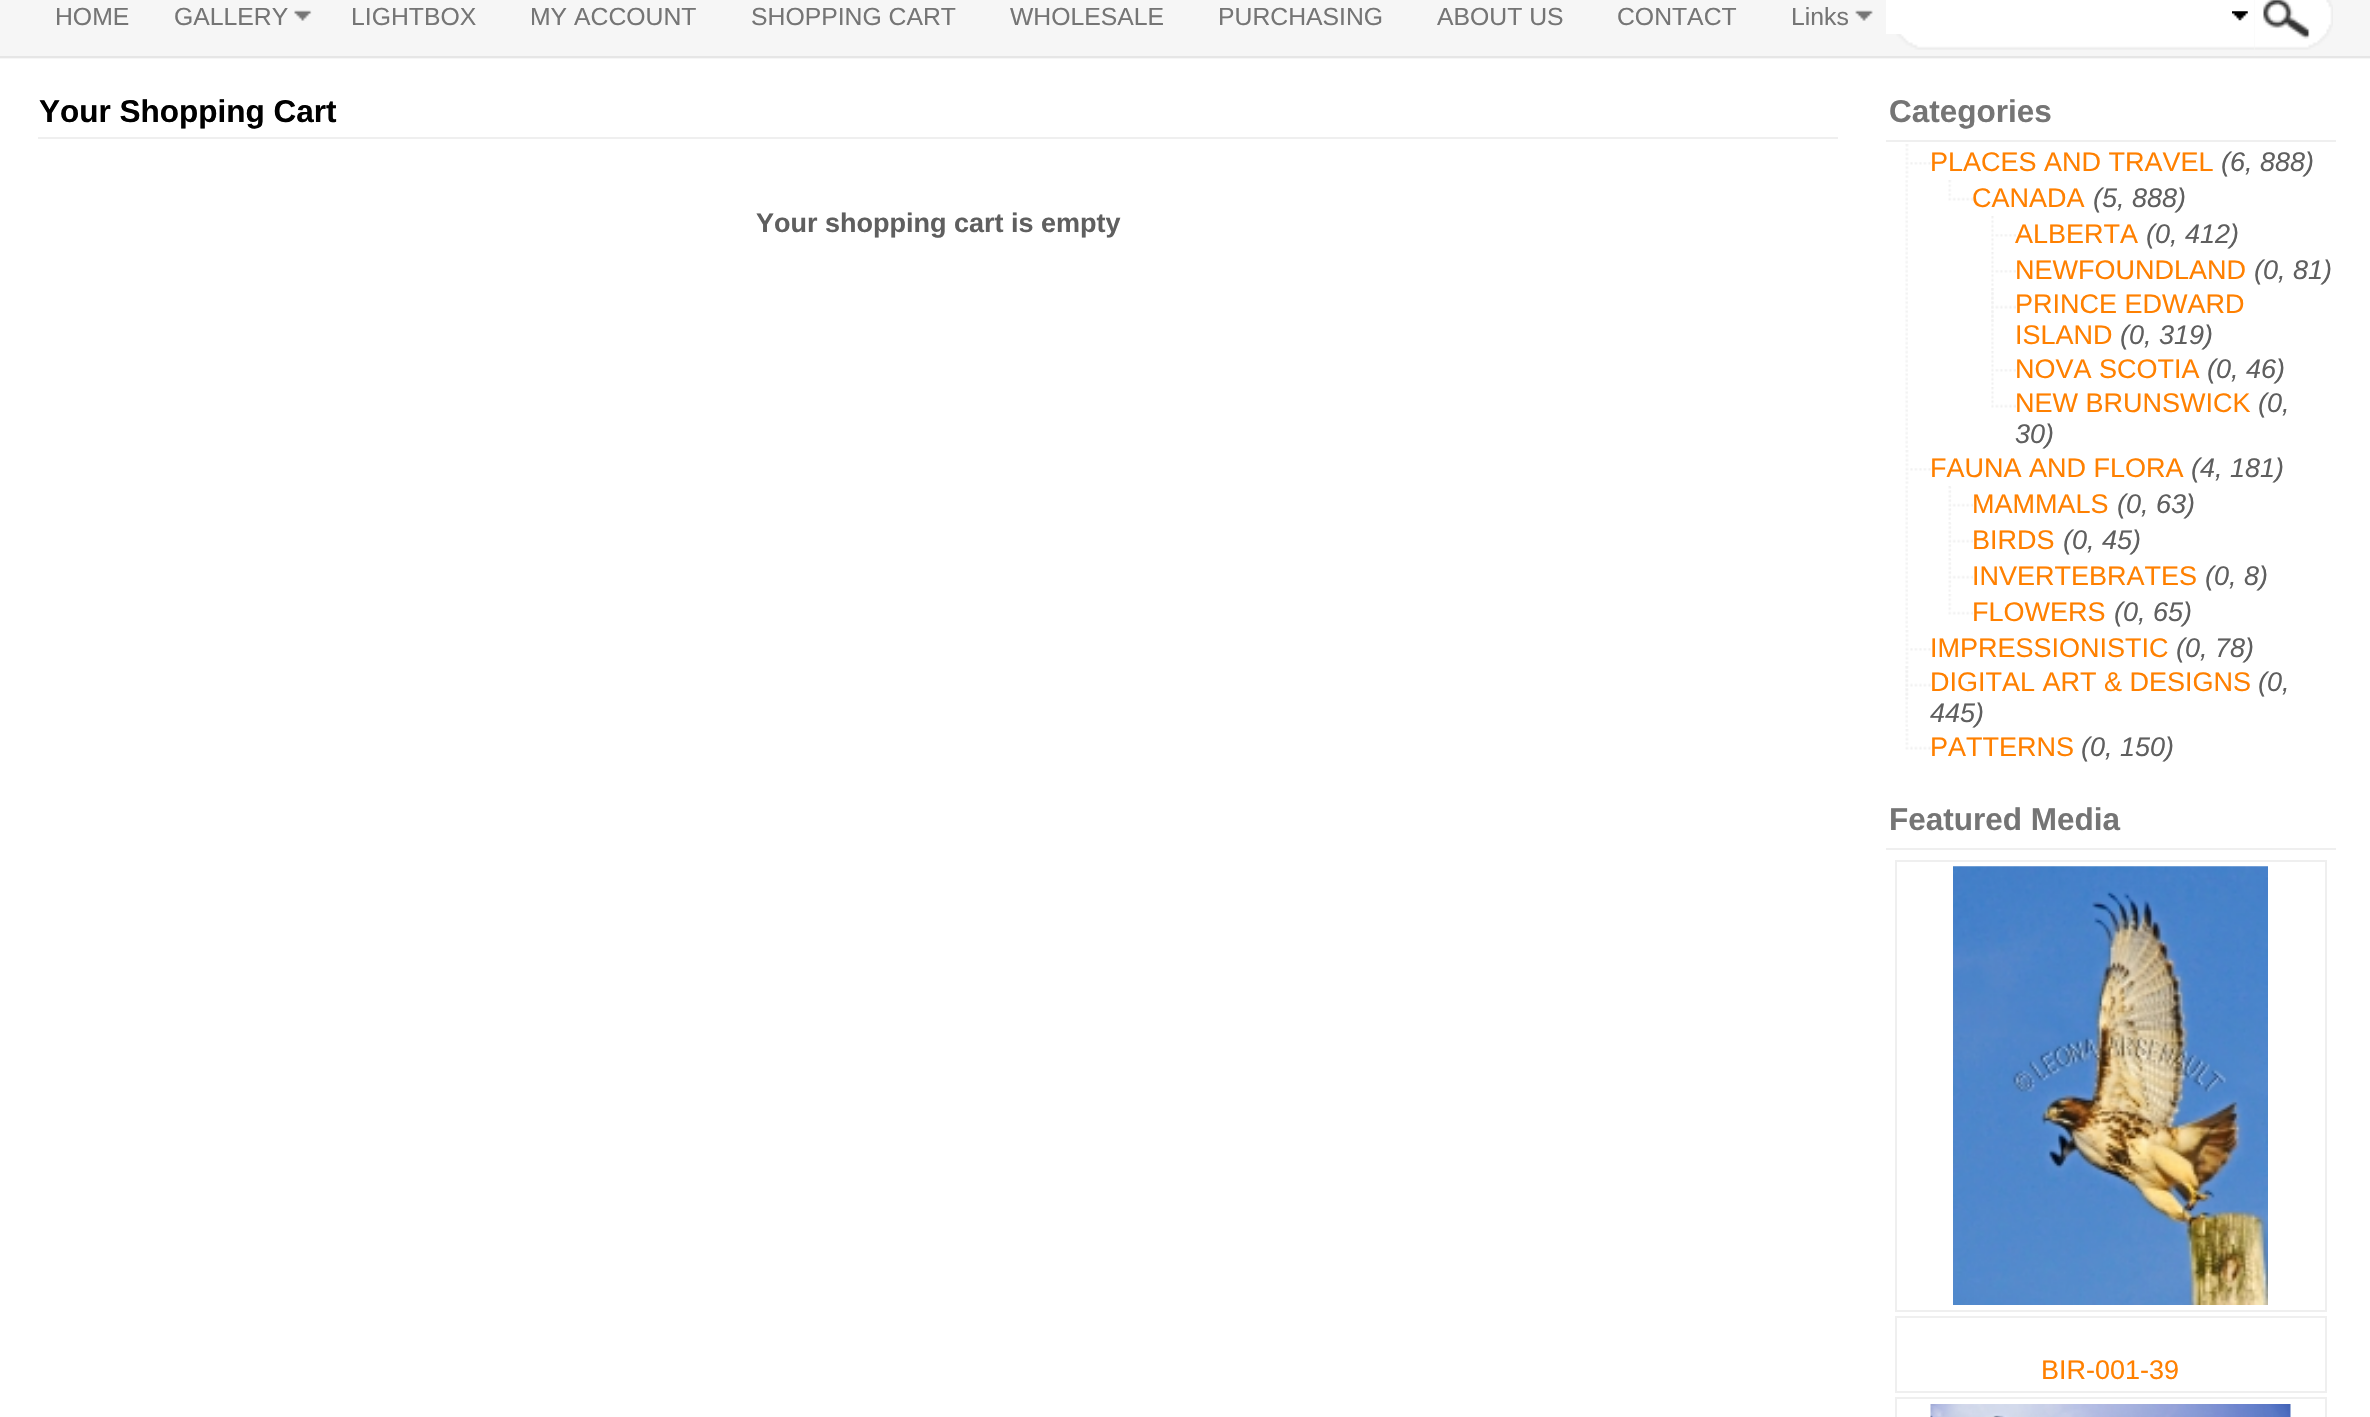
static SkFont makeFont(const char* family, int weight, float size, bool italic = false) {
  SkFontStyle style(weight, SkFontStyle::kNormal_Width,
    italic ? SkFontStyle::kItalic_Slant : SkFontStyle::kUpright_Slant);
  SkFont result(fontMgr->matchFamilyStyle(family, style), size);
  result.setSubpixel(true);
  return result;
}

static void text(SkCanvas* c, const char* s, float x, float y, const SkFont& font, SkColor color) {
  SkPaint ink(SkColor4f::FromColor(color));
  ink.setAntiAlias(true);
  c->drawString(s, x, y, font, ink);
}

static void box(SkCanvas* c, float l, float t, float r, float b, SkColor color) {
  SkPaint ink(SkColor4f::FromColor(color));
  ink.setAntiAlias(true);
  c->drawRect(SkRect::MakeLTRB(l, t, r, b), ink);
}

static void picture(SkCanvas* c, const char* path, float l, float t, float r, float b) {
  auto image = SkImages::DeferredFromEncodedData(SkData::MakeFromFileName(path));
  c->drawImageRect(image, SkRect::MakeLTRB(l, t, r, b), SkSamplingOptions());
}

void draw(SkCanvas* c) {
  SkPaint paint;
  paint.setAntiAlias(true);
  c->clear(0xffffffff);
  box(c, 0, 0, 2370, 59, 0xfff6f6f6);
  box(c, 0, 56, 2370, 58, 0xffe6e6e6);
  SkFont face1 = makeFont("Liberation Sans", 400, 24.75f);
  text(c, "HOME", 55, 25, face1, 0xff757575);
  picture(c, "img_01.png", 294, 10, 312, 21);
  text(c, "GALLERY", 174, 25, face1, 0xff757575);
  text(c, "LIGHTBOX", 351, 25, face1, 0xff757575);
  text(c, "MY ACCOUNT", 530, 25, face1, 0xff757575);
  text(c, "SHOPPING CART", 751, 25, face1, 0xff757575);
  text(c, "WHOLESALE", 1010, 25, face1, 0xff757575);
  text(c, "PURCHASING", 1218, 25, face1, 0xff757575);
  text(c, "ABOUT US", 1437, 25, face1, 0xff757575);
  text(c, "CONTACT", 1617, 25, face1, 0xff757575);
  picture(c, "img_02.png", 1855, 10, 1873, 21);
  text(c, "Links", 1791, 25, face1, 0xff757575);
  picture(c, "img_03.png", 1892, 0, 2255, 50);
  box(c, 1886, 0, 1902, 34, 0xffffffff);
  picture(c, "img_04.png", 2232, 11, 2248, 21);
  picture(c, "img_05.png", 2255, 0, 2333, 50);
  box(c, 38, 137, 1838, 139, 0xffefefef);
  SkFont face2 = makeFont("Liberation Sans", 700, 31.5f);
  text(c, "Your Shopping Cart", 39, 122, face2, 0xff000000);
  SkFont face3 = makeFont("Liberation Sans", 700, 27);
  text(c, "Your shopping cart is empty", 756, 232, face3, 0xff5f5f5f);
  box(c, 1886, 140, 2336, 142, 0xffefefef);
  text(c, "Categories", 1889, 122, face2, 0xff757575);
  picture(c, "img_06.png", 1905, 144, 1909, 178);
  picture(c, "img_07.png", 1910, 162, 1931, 165);
  SkFont face4 = makeFont("Liberation Sans", 400, 27);
  text(c, "PLACES AND TRAVEL", 1930, 171, face4, 0xffff8000);
  SkFont face5 = makeFont("Liberation Sans", 400, 27, true);
  text(c, "(6, 888)", 2221, 171, face5, 0xff5f5f5f);
  picture(c, "img_08.png", 1905, 180, 1908, 448);
  picture(c, "img_09.png", 1948, 180, 1973, 201);
  text(c, "CANADA", 1972, 207, face4, 0xffff8000);
  text(c, "(5, 888)", 2093, 207, face5, 0xff5f5f5f);
  picture(c, "img_10.png", 1991, 216, 1994, 250);
  picture(c, "img_11.png", 1995, 234, 2016, 237);
  text(c, "ALBERTA", 2015, 243, face4, 0xffff8000);
  text(c, "(0, 412)", 2146, 243, face5, 0xff5f5f5f);
  picture(c, "img_10.png", 1991, 252, 1994, 286);
  picture(c, "img_11.png", 1995, 270, 2016, 273);
  text(c, "NEWFOUNDLAND", 2015, 279, face4, 0xffff8000);
  text(c, "(0, 81)", 2254, 279, face5, 0xff5f5f5f);
  picture(c, "img_12.png", 1991, 288, 1994, 349);
  picture(c, "img_13.png", 1991, 288, 2016, 322);
  text(c, "PRINCE EDWARD", 2015, 313, face4, 0xffff8000);
  text(c, "ISLAND", 2015, 344, face4, 0xffff8000);
  text(c, "(0, 319)", 2120, 344, face5, 0xff5f5f5f);
  picture(c, "img_10.png", 1991, 351, 1994, 385);
  picture(c, "img_11.png", 1995, 369, 2016, 372);
  text(c, "NOVA SCOTIA", 2015, 378, face4, 0xffff8000);
  text(c, "(0, 46)", 2207, 378, face5, 0xff5f5f5f);
  picture(c, "img_14.png", 1991, 387, 2016, 408);
  text(c, "NEW BRUNSWICK", 2015, 412, face4, 0xffff8000);
  text(c, "(0,", 2258, 412, face5, 0xff5f5f5f);
  text(c, "30)", 2015, 443, face5, 0xff5f5f5f);
  picture(c, "img_06.png", 1905, 450, 1909, 484);
  picture(c, "img_07.png", 1910, 468, 1931, 471);
  text(c, "FAUNA AND FLORA", 1930, 477, face4, 0xffff8000);
  text(c, "(4, 181)", 2191, 477, face5, 0xff5f5f5f);
  picture(c, "img_15.png", 1905, 486, 1908, 628);
  picture(c, "img_16.png", 1948, 486, 1951, 520);
  picture(c, "img_17.png", 1950, 487, 1973, 515);
  text(c, "MAMMALS", 1972, 513, face4, 0xffff8000);
  text(c, "(0, 63)", 2117, 513, face5, 0xff5f5f5f);
  picture(c, "img_16.png", 1948, 522, 1951, 556);
  picture(c, "img_17.png", 1950, 523, 1973, 551);
  text(c, "BIRDS", 1972, 549, face4, 0xffff8000);
  text(c, "(0, 45)", 2063, 549, face5, 0xff5f5f5f);
  picture(c, "img_18.png", 1948, 558, 1951, 592);
  picture(c, "img_19.png", 1950, 559, 1973, 587);
  text(c, "INVERTEBRATES", 1972, 585, face4, 0xffff8000);
  text(c, "(0, 8)", 2205, 585, face5, 0xff5f5f5f);
  picture(c, "img_20.png", 1948, 594, 1973, 615);
  text(c, "FLOWERS", 1972, 621, face4, 0xffff8000);
  text(c, "(0, 65)", 2114, 621, face5, 0xff5f5f5f);
  picture(c, "img_06.png", 1905, 630, 1909, 664);
  picture(c, "img_07.png", 1910, 648, 1931, 651);
  text(c, "IMPRESSIONISTIC", 1930, 657, face4, 0xffff8000);
  text(c, "(0, 78)", 2176, 657, face5, 0xff5f5f5f);
  picture(c, "img_21.png", 1905, 666, 1908, 727);
  picture(c, "img_22.png", 1905, 666, 1931, 699);
  text(c, "DIGITAL ART & DESIGNS", 1930, 691, face4, 0xffff8000);
  text(c, "(0,", 2258, 691, face5, 0xff5f5f5f);
  text(c, "445)", 1930, 722, face5, 0xff5f5f5f);
  picture(c, "img_23.png", 1905, 729, 1931, 750);
  text(c, "PATTERNS", 1930, 756, face4, 0xffff8000);
  text(c, "(0, 150)", 2081, 756, face5, 0xff5f5f5f);
  box(c, 1886, 848, 2336, 850, 0xffefefef);
  text(c, "Featured Media", 1889, 830, face2, 0xff757575);
  paint.setStyle(SkPaint::kStroke_Style);
  paint.setStrokeWidth(2);
  paint.setColor(0xffefefef);
  c->drawRect(SkRect::MakeLTRB(1896, 861, 2326, 1311), paint);
  picture(c, "img_24.png", 1953, 866, 2268, 1305);
  c->drawRect(SkRect::MakeLTRB(1896, 1317, 2326, 1392), paint);
  text(c, "BIR-001-39", 2041, 1379, face4, 0xffff8000);
  c->drawRect(SkRect::MakeLTRB(1896, 1398, 2326, 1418), paint);
  picture(c, "img_25.png", 1930, 1404, 2291, 1417);
}
